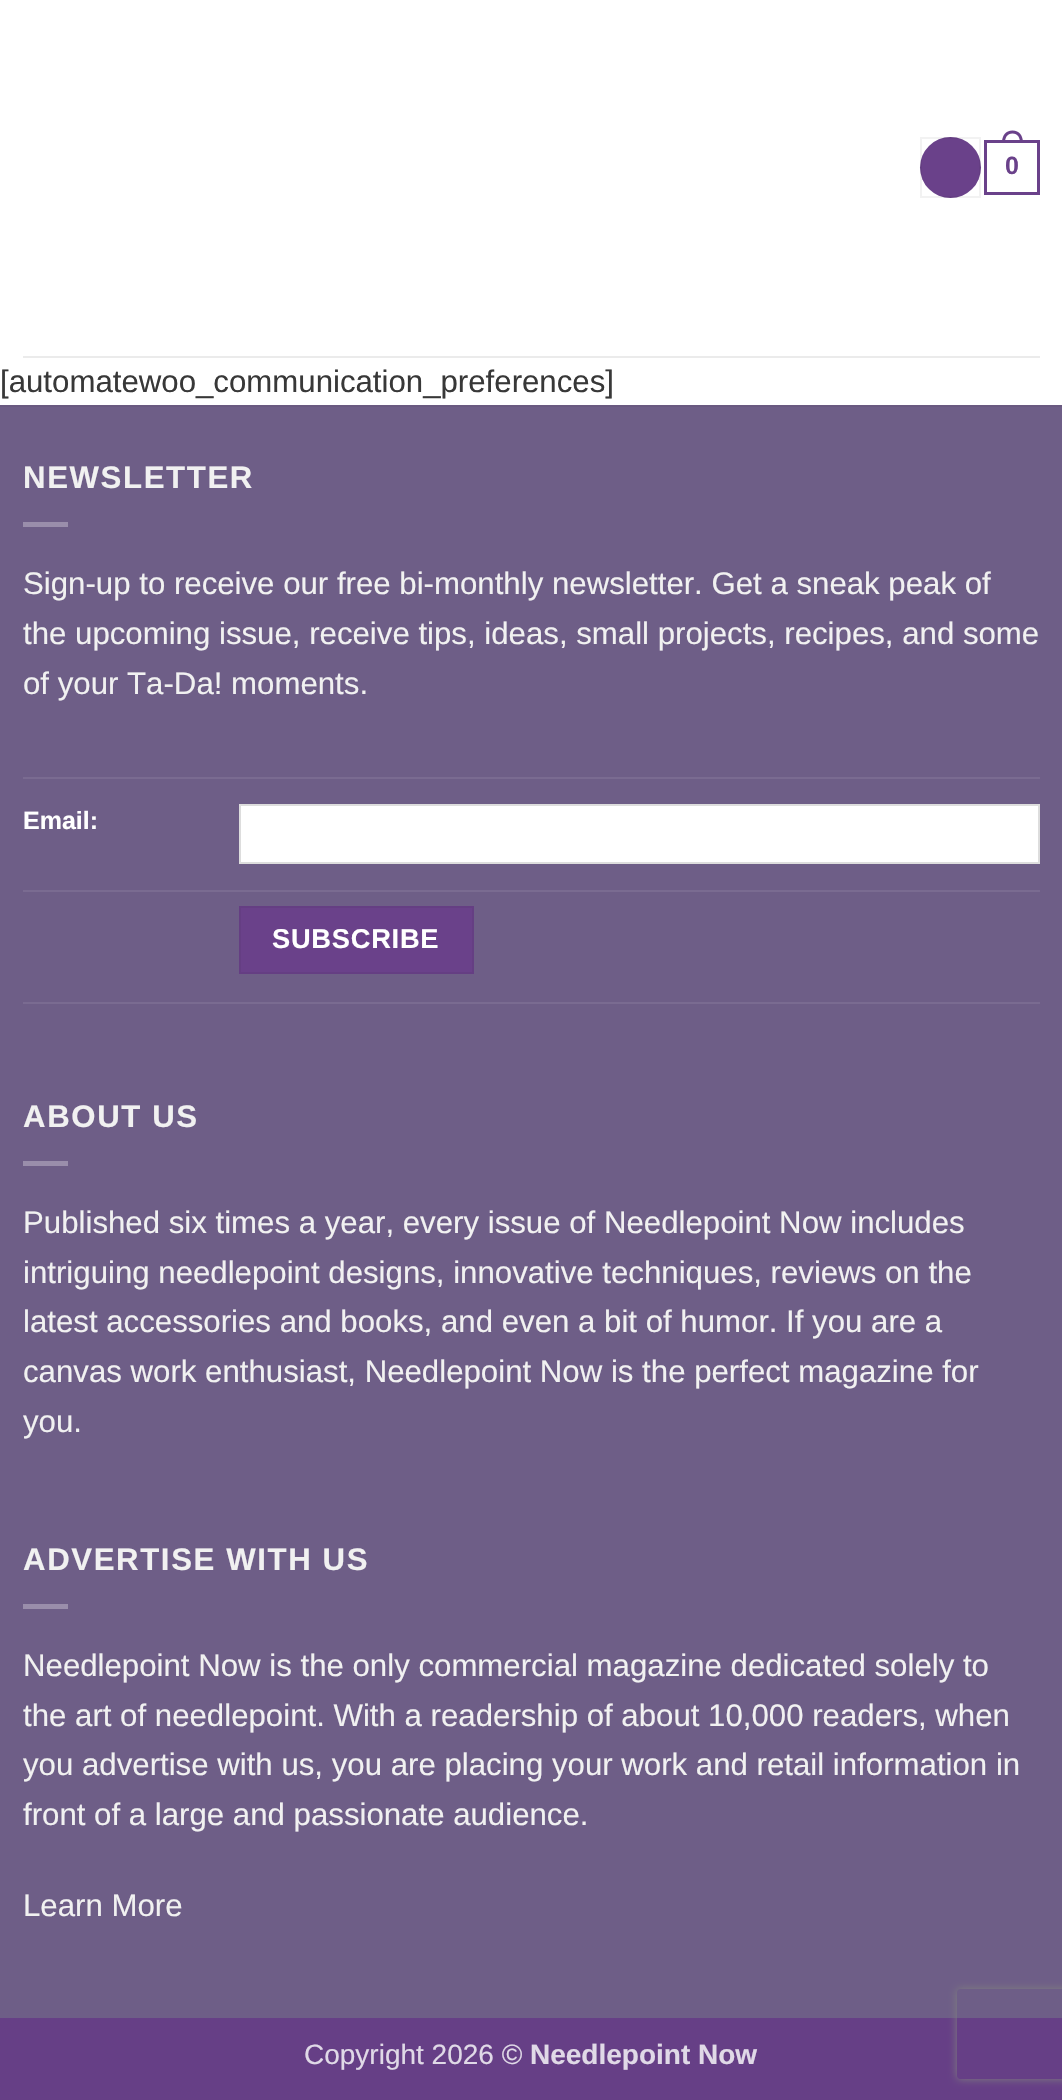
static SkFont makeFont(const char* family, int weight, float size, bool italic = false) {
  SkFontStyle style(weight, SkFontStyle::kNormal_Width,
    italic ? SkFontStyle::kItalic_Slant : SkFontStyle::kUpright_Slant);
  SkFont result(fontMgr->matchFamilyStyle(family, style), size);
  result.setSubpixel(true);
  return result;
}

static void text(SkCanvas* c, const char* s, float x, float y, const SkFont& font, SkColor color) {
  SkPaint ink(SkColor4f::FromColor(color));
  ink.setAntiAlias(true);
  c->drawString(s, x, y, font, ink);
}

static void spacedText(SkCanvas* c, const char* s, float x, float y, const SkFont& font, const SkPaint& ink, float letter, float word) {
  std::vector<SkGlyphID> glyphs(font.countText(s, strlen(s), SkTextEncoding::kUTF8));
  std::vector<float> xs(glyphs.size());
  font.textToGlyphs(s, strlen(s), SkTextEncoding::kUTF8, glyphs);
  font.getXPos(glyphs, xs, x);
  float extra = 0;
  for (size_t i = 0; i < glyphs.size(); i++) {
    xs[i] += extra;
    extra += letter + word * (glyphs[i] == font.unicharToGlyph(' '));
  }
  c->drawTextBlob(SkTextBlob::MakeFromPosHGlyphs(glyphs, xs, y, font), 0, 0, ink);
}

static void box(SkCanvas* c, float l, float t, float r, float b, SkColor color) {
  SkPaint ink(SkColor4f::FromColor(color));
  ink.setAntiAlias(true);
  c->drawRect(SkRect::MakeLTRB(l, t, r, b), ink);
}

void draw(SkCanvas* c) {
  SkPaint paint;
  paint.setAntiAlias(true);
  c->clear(0xffffffff);
  paint.setColor(0xff6a418a);
  c->drawCircle(950.5f, 167.5f, 30.5f, paint);
  paint.setStyle(SkPaint::kStroke_Style);
  paint.setStrokeWidth(2);
  paint.setColor(0x0d000000);
  c->drawRect(SkRect::MakeLTRB(921, 138, 980, 197), paint);
  paint.setStrokeWidth(3);
  paint.setColor(0xff6a418a);
  c->drawRect(SkRect::MakeLTRB(985.5f, 141.5f, 1038.5f, 193.5f), paint);
  paint.setStyle(SkPaint::kFill_Style);
  c->drawPath(SkPathBuilder(SkPathFillType::kEvenOdd).moveTo(1012.5f, 130.5f).cubicTo(1019.5f, 130.5f, 1023, 136, 1023, 142.5f).lineTo(1002, 142.5f).cubicTo(1002, 136, 1005.5f, 130.5f, 1012.5f, 130.5f).close().moveTo(1012.5f, 133.5f).cubicTo(1018, 133.5f, 1020, 138, 1020, 142.5f).lineTo(1005, 142.5f).cubicTo(1005, 138, 1007, 133.5f, 1012.5f, 133.5f).close().detach(), paint);
  SkFont face1 = makeFont("Liberation Sans", 700, 25);
  text(c, "0", 1005, 174, face1, 0xff6a418a);
  box(c, 23, 356, 1040, 358, 0xffebebeb);
  SkFont face2 = makeFont("Liberation Sans", 400, 31.2f);
  text(c, "[automatewoo_communication_preferences]", 0, 392, face2, 0xff383838);
  box(c, 0, 407, 1062, 2018, 0xff6e5e87);
  box(c, 0, 405, 1062, 407, 0xff695980);
  SkFont face3 = makeFont("Liberation Sans", 700, 31.2f);
  paint.setColor(0xfff1f1f1);
  spacedText(c, "NEWSLETTER", 23, 488, face3, paint, 1.6f, 0);
  box(c, 23, 522, 68, 527, 0xff9a8eab);
  text(c, "Sign-up to receive our free bi-monthly newsletter. Get a sneak peak of", 23, 594, face2, 0xfff1f1f1);
  text(c, "the upcoming issue, receive tips, ideas, small projects, recipes, and some", 23, 644, face2, 0xfff1f1f1);
  text(c, "of your Ta-Da! moments.", 23, 694, face2, 0xfff1f1f1);
  box(c, 23, 777, 1040, 779, 0xff7a6b91);
  box(c, 23, 890, 1040, 892, 0xff7a6b91);
  text(c, "Email:", 23, 829, face1, 0xffffffff);
  paint.setColor(0xffffffff);
  c->drawRect(SkRect::MakeLTRB(240, 805, 1039, 863), paint);
  paint.setStyle(SkPaint::kStroke_Style);
  paint.setStrokeWidth(2);
  paint.setColor(0xffdddddd);
  c->drawRect(SkRect::MakeLTRB(240, 805, 1039, 863), paint);
  paint.setStyle(SkPaint::kFill_Style);
  paint.setColor(0xff6a418a);
  c->drawRect(SkRect::MakeLTRB(240, 907, 473, 973), paint);
  paint.setStyle(SkPaint::kStroke_Style);
  paint.setColor(0xff653e83);
  c->drawRect(SkRect::MakeLTRB(240, 907, 473, 973), paint);
  SkFont face4 = makeFont("Liberation Sans", 700, 27.25f);
  paint.setStyle(SkPaint::kFill_Style);
  paint.setColor(0xffffffff);
  spacedText(c, "SUBSCRIBE", 272, 948, face4, paint, 0.75f, 0);
  box(c, 23, 1002, 1040, 1004, 0xff7a6b91);
  paint.setColor(0xfff1f1f1);
  spacedText(c, "ABOUT US", 23, 1127, face3, paint, 1.6f, 0);
  box(c, 23, 1161, 68, 1166, 0xff9a8eab);
  text(c, "Published six times a year, every issue of Needlepoint Now includes", 23, 1233, face2, 0xfff1f1f1);
  text(c, "intriguing needlepoint designs, innovative techniques, reviews on the", 23, 1283, face2, 0xfff1f1f1);
  text(c, "latest accessories and books, and even a bit of humor. If you are a", 23, 1332, face2, 0xfff1f1f1);
  text(c, "canvas work enthusiast, Needlepoint Now is the perfect magazine for", 23, 1382, face2, 0xfff1f1f1);
  text(c, "you.", 23, 1432, face2, 0xfff1f1f1);
  spacedText(c, "ADVERTISE WITH US", 23, 1570, face3, paint, 1.6f, 0);
  box(c, 23, 1604, 68, 1609, 0xff9a8eab);
  text(c, "Needlepoint Now is the only commercial magazine dedicated solely to", 23, 1676, face2, 0xfff1f1f1);
  text(c, "the art of needlepoint. With a readership of about 10,000 readers, when", 23, 1726, face2, 0xfff1f1f1);
  text(c, "you advertise with us, you are placing your work and retail information in", 23, 1775, face2, 0xfff1f1f1);
  text(c, "front of a large and passionate audience.", 23, 1825, face2, 0xfff1f1f1);
  text(c, "Learn More", 23, 1916, face2, 0xfff1f1f1);
  box(c, 0, 2018, 1062, 2100, 0xff663f86);
  SkFont face5 = makeFont("Liberation Sans", 400, 28);
  text(c, "Copyright 2026 ©", 304, 2064, face5, 0xffe0d9e7);
  SkFont face6 = makeFont("Liberation Sans", 700, 28);
  text(c, "Needlepoint Now", 530, 2064, face6, 0xffe0d9e7);
  c->save();
  c->clipPath(SkPathBuilder(SkPathFillType::kEvenOdd).moveTo(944, 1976).lineTo(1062, 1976).lineTo(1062, 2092).lineTo(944, 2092).close().moveTo(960, 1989).lineTo(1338, 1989).cubicTo(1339.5f, 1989, 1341, 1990.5f, 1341, 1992).lineTo(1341, 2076).cubicTo(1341, 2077.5f, 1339.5f, 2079, 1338, 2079).lineTo(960, 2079).cubicTo(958.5f, 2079, 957, 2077.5f, 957, 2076).lineTo(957, 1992).cubicTo(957, 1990.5f, 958.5f, 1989, 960, 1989).close().detach(), true);
  paint.setColor(0xff808080);
  paint.setMaskFilter(SkMaskFilter::MakeBlur(kNormal_SkBlurStyle, 4));
  c->drawRoundRect(SkRect::MakeLTRB(957, 1989, 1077, 2079), 3, 3, paint);
  paint.setMaskFilter(nullptr);
  c->restore();
}
